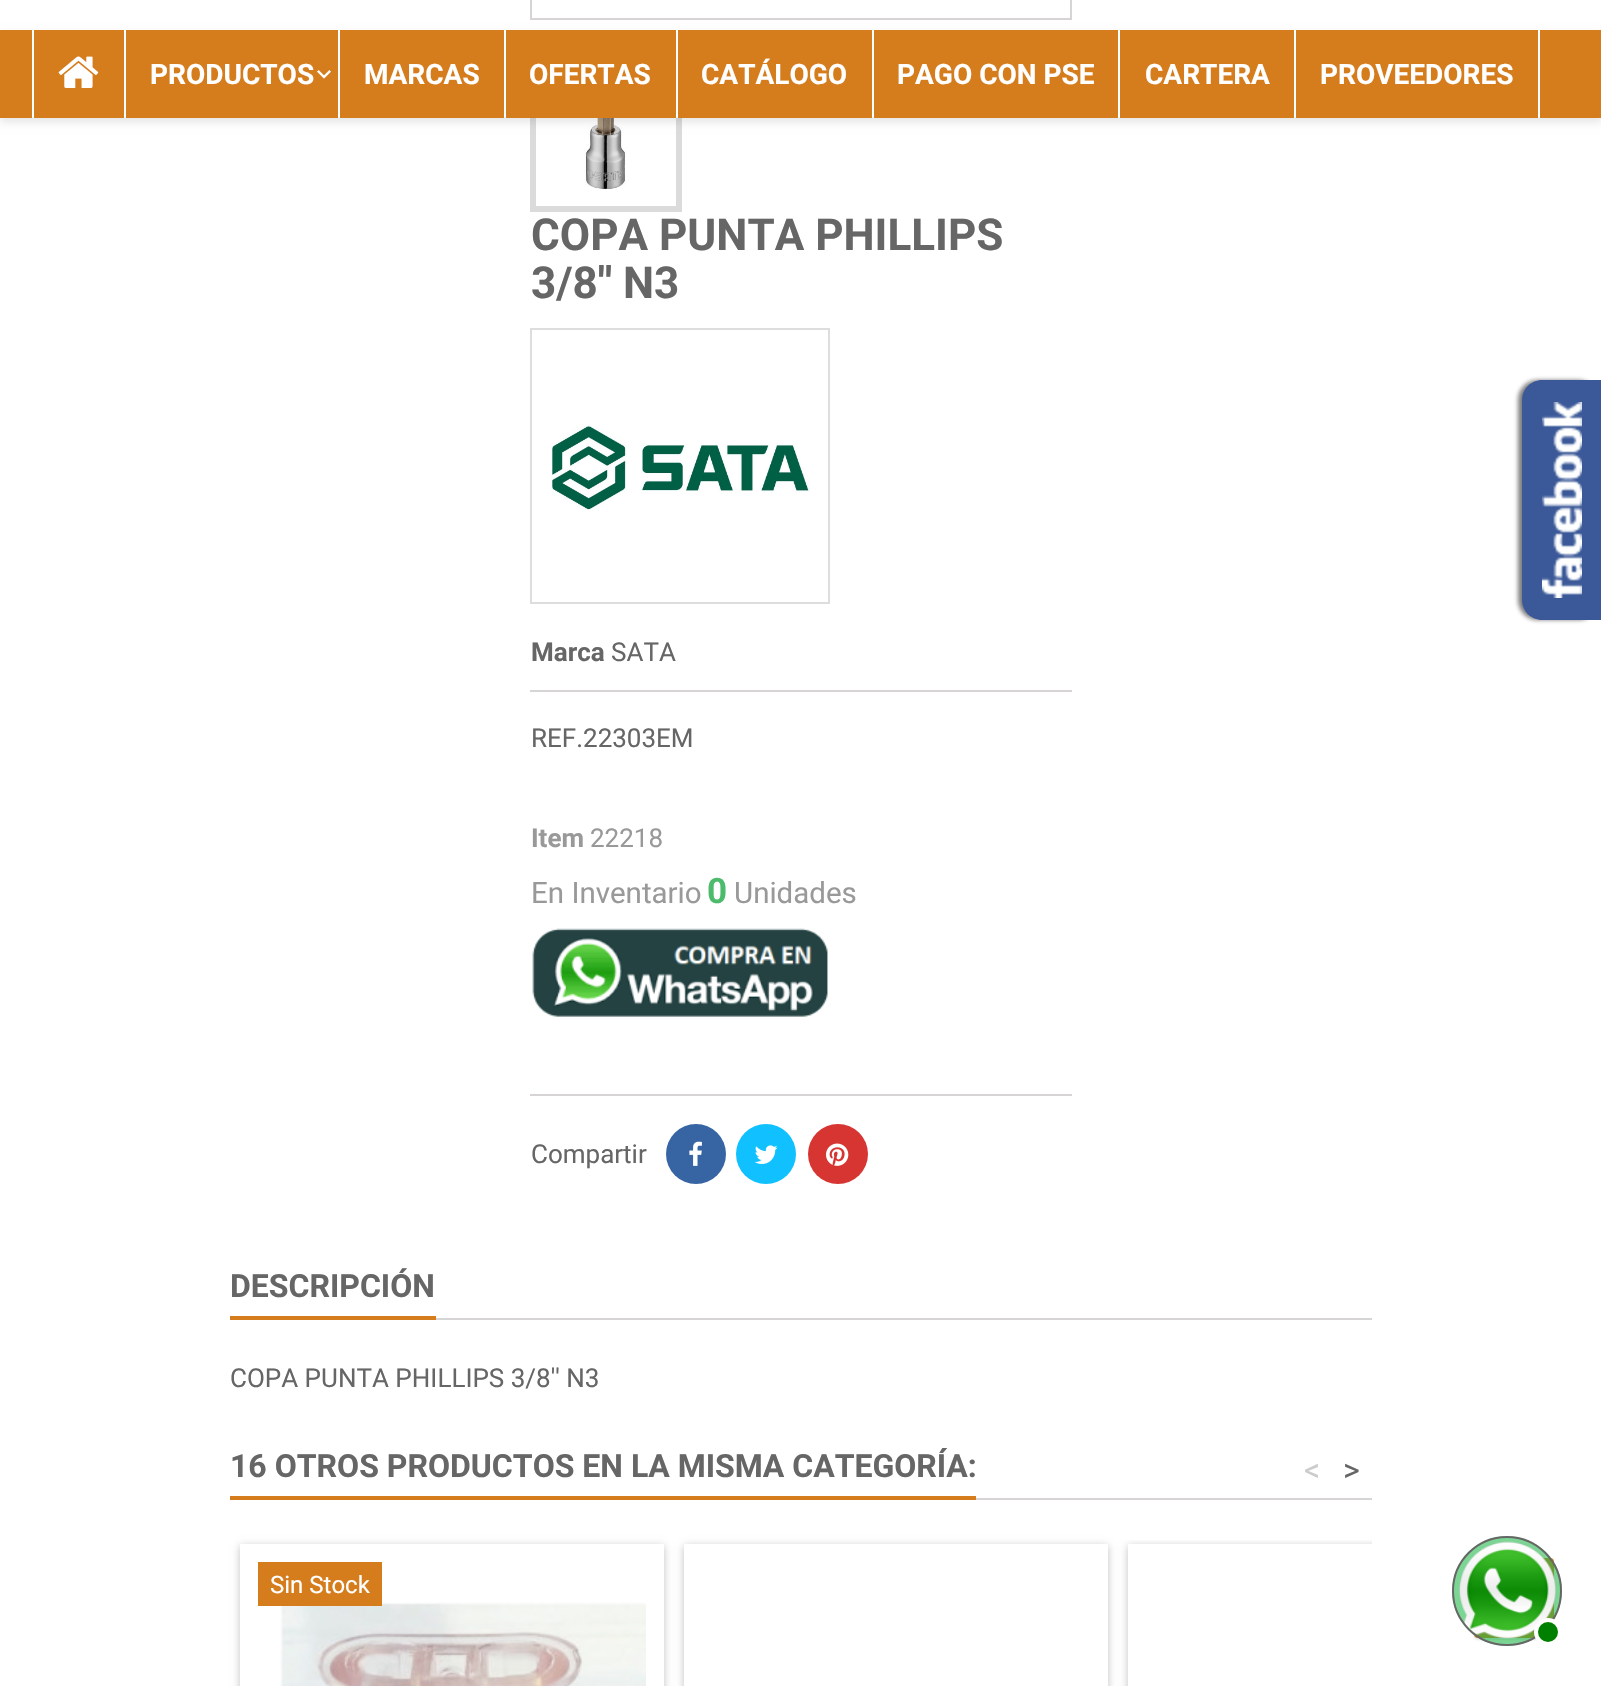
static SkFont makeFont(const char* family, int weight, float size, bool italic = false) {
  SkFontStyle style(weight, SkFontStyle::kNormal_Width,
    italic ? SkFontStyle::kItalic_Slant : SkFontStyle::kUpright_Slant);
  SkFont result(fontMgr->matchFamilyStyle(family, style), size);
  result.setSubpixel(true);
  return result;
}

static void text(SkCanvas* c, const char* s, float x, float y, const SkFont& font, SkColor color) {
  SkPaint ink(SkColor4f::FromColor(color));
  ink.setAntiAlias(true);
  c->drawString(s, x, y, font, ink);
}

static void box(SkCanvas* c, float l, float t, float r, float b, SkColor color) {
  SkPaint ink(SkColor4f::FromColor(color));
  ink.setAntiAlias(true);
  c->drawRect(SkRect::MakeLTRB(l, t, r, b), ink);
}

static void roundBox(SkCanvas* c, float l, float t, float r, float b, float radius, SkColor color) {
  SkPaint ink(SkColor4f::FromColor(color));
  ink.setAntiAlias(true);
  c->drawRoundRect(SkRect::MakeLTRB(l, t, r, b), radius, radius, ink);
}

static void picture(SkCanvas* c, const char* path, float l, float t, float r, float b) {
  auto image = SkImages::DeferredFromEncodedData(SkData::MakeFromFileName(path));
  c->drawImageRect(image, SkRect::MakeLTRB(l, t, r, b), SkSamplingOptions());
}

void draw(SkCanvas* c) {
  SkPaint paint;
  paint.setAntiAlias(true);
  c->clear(0xffffffff);
  paint.setStyle(SkPaint::kStroke_Style);
  paint.setStrokeWidth(6);
  paint.setColor(0xffdbdbdb);
  c->drawRect(SkRect::MakeLTRB(533, 63, 679, 209), paint);
  picture(c, "img_03.png", 584, 118, 626, 190);
  paint.setStyle(SkPaint::kFill_Style);
  paint.setColor(0x1a000000);
  paint.setMaskFilter(SkMaskFilter::MakeBlur(kNormal_SkBlurStyle, 4));
  c->drawRect(SkRect::MakeLTRB(0, 34, 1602, 122), paint);
  paint.setMaskFilter(nullptr);
  box(c, 0, 30, 1601, 118, 0xffd57c1c);
  box(c, 32, 30, 34, 118, 0xffffffff);
  picture(c, "img_01.png", 58, 56, 99, 88);
  box(c, 124, 30, 126, 118, 0xffffffff);
  SkFont face1 = makeFont("Roboto", 700, 28);
  text(c, "PRODUCTOS", 150, 84, face1, 0xffffffff);
  picture(c, "img_02.png", 317, 70, 331, 79);
  box(c, 338, 30, 340, 118, 0xffffffff);
  text(c, "MARCAS", 364, 84, face1, 0xffffffff);
  box(c, 504, 30, 506, 118, 0xffffffff);
  text(c, "OFERTAS", 529, 84, face1, 0xffffffff);
  box(c, 676, 30, 678, 118, 0xffffffff);
  text(c, "CATÁLOGO", 701, 84, face1, 0xffffffff);
  box(c, 872, 30, 874, 118, 0xffffffff);
  text(c, "PAGO CON PSE", 897, 84, face1, 0xffffffff);
  box(c, 1118, 30, 1120, 118, 0xffffffff);
  text(c, "CARTERA", 1145, 84, face1, 0xffffffff);
  box(c, 1538, 30, 1540, 118, 0xffffffff);
  box(c, 1294, 30, 1296, 118, 0xffffffff);
  text(c, "PROVEEDORES", 1320, 84, face1, 0xffffffff);
  paint.setStyle(SkPaint::kStroke_Style);
  paint.setStrokeWidth(2);
  paint.setColor(0xffd6d4d4);
  c->drawRect(SkRect::MakeLTRB(531, -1, 1071, 19), paint);
  SkFont face2 = makeFont("Roboto", 700, 44);
  text(c, "COPA PUNTA PHILLIPS", 531, 250, face2, 0xff666666);
  text(c, "3/8'' N3", 531, 298, face2, 0xff666666);
  paint.setColor(0xffdddddd);
  c->drawRect(SkRect::MakeLTRB(531, 329, 829, 603), paint);
  picture(c, "img_04.png", 551, 425, 810, 510);
  SkFont face3 = makeFont("Roboto", 700, 26);
  text(c, "Marca", 531, 661, face3, 0xff666666);
  SkFont face4 = makeFont("Roboto", 400, 26);
  text(c, "SATA", 611, 661, face4, 0xff666666);
  box(c, 530, 690, 1072, 692, 0xffd6d4d4);
  text(c, "REF.22303EM", 531, 747, face4, 0xff666666);
  text(c, "Item", 531, 847, face3, 0xff999999);
  text(c, "22218", 590, 847, face4, 0xff999999);
  SkFont face5 = makeFont("Roboto", 400, 29.5f);
  text(c, "En Inventario", 531, 903, face5, 0xff999999);
  SkFont face6 = makeFont("Roboto", 700, 35);
  text(c, "0", 707, 903, face6, 0xff4cbb6c);
  text(c, "Unidades", 734, 903, face5, 0xff999999);
  picture(c, "img_05.png", 532, 928, 828, 1017);
  box(c, 530, 1094, 1072, 1096, 0xffd6d4d4);
  text(c, "Compartir", 531, 1163, face4, 0xff666666);
  paint.setStyle(SkPaint::kFill_Style);
  paint.setColor(0xff3765a3);
  c->drawCircle(696, 1154, 30, paint);
  picture(c, "img_06.png", 689, 1141, 702, 1166);
  paint.setColor(0xff11c1ff);
  c->drawCircle(766, 1154, 30, paint);
  picture(c, "img_07.png", 754, 1145, 778, 1164);
  paint.setColor(0xffd73532);
  c->drawCircle(838, 1154, 30, paint);
  picture(c, "img_08.png", 826, 1143, 849, 1166);
  box(c, 436, 1318, 1372, 1320, 0xffd6d4d4);
  box(c, 230, 1316, 436, 1320, 0xffd57c1c);
  SkFont face7 = makeFont("Roboto", 700, 32);
  text(c, "DESCRIPCIÓN", 230, 1297, face7, 0xff666666);
  text(c, "COPA PUNTA PHILLIPS 3/8'' N3", 230, 1387, face4, 0xff666666);
  box(c, 976, 1498, 1372, 1500, 0xffd6d4d4);
  box(c, 230, 1496, 976, 1500, 0xffd57c1c);
  text(c, "16 OTROS PRODUCTOS EN LA MISMA CATEGORÍA:", 230, 1477, face7, 0xff666666);
  SkFont face8 = makeFont("Roboto", 400, 32);
  text(c, "<", 1304, 1481, face8, 0xffcccccc);
  text(c, ">", 1343, 1481, face8, 0xff666666);
  c->save();
  c->clipPath(SkPathBuilder(SkPathFillType::kEvenOdd).moveTo(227, 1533).lineTo(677, 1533).lineTo(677, 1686).lineTo(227, 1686).close().moveTo(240, 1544).lineTo(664, 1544).lineTo(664, 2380).lineTo(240, 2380).close().detach(), true);
  paint.setColor(0x3d000000);
  paint.setMaskFilter(SkMaskFilter::MakeBlur(kNormal_SkBlurStyle, 4));
  c->drawRect(SkRect::MakeLTRB(240, 1546, 664, 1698), paint);
  paint.setMaskFilter(nullptr);
  c->restore();
  picture(c, "img_09.png", 280, 1602, 646, 1686);
  box(c, 258, 1562, 382, 1606, 0xffd57c1c);
  SkFont face9 = makeFont("Roboto", 400, 24);
  text(c, "Sin Stock", 270, 1593, face9, 0xffffffff);
  c->save();
  c->clipPath(SkPathBuilder(SkPathFillType::kEvenOdd).moveTo(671, 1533).lineTo(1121, 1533).lineTo(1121, 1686).lineTo(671, 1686).close().moveTo(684, 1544).lineTo(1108, 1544).lineTo(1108, 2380).lineTo(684, 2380).close().detach(), true);
  paint.setMaskFilter(SkMaskFilter::MakeBlur(kNormal_SkBlurStyle, 4));
  c->drawRect(SkRect::MakeLTRB(684, 1546, 1108, 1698), paint);
  paint.setMaskFilter(nullptr);
  c->restore();
  c->save();
  c->clipRect(SkRect::MakeLTRB(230, 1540, 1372, 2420));
  c->clipPath(SkPathBuilder(SkPathFillType::kEvenOdd).moveTo(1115, 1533).lineTo(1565, 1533).lineTo(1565, 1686).lineTo(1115, 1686).close().moveTo(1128, 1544).lineTo(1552, 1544).lineTo(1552, 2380).lineTo(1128, 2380).close().detach(), true);
  paint.setMaskFilter(SkMaskFilter::MakeBlur(kNormal_SkBlurStyle, 4));
  c->drawRect(SkRect::MakeLTRB(1128, 1546, 1552, 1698), paint);
  paint.setMaskFilter(nullptr);
  c->restore();
  paint.setColor(0x80000000);
  paint.setMaskFilter(SkMaskFilter::MakeBlur(kNormal_SkBlurStyle, 2));
  c->drawRoundRect(SkRect::MakeLTRB(1518, 380, 1598, 620), 20, 20, paint);
  paint.setMaskFilter(nullptr);
  paint.setColor(0xff3b5998);
  c->drawPath(SkPathBuilder().moveTo(1542, 380).lineTo(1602, 380).lineTo(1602, 620).lineTo(1542, 620).cubicTo(1531, 620, 1522, 611, 1522, 600).lineTo(1522, 400).cubicTo(1522, 389, 1531, 380, 1542, 380).close().detach(), paint);
  picture(c, "img_10.png", 1542, 402, 1582, 598);
  paint.setColor(0x1a000000);
  paint.setMaskFilter(SkMaskFilter::MakeBlur(kNormal_SkBlurStyle, 1));
  c->drawRoundRect(SkRect::MakeLTRB(1474, 1560, 1554, 1640), 4, 4, paint);
  paint.setMaskFilter(nullptr);
  roundBox(c, 1474, 1558, 1554, 1638, 4, 0xffd57c1c);
  paint.setColor(0x401ab744);
  c->drawCircle(1507, 1591, 55, paint);
  c->drawCircle(1507, 1591, 55, paint);
  c->drawCircle(1507, 1591, 54, paint);
  paint.setStyle(SkPaint::kStroke_Style);
  paint.setColor(0xff666666);
  c->drawCircle(1507, 1591, 54, paint);
  picture(c, "img_11.png", 1458, 1541, 1557, 1639);
  paint.setStyle(SkPaint::kFill_Style);
  paint.setColor(0xff008000);
  c->drawCircle(1548, 1632, 12, paint);
  paint.setStyle(SkPaint::kStroke_Style);
  paint.setStrokeWidth(4);
  paint.setColor(0xffffffff);
  c->drawCircle(1548, 1632, 12, paint);
}
